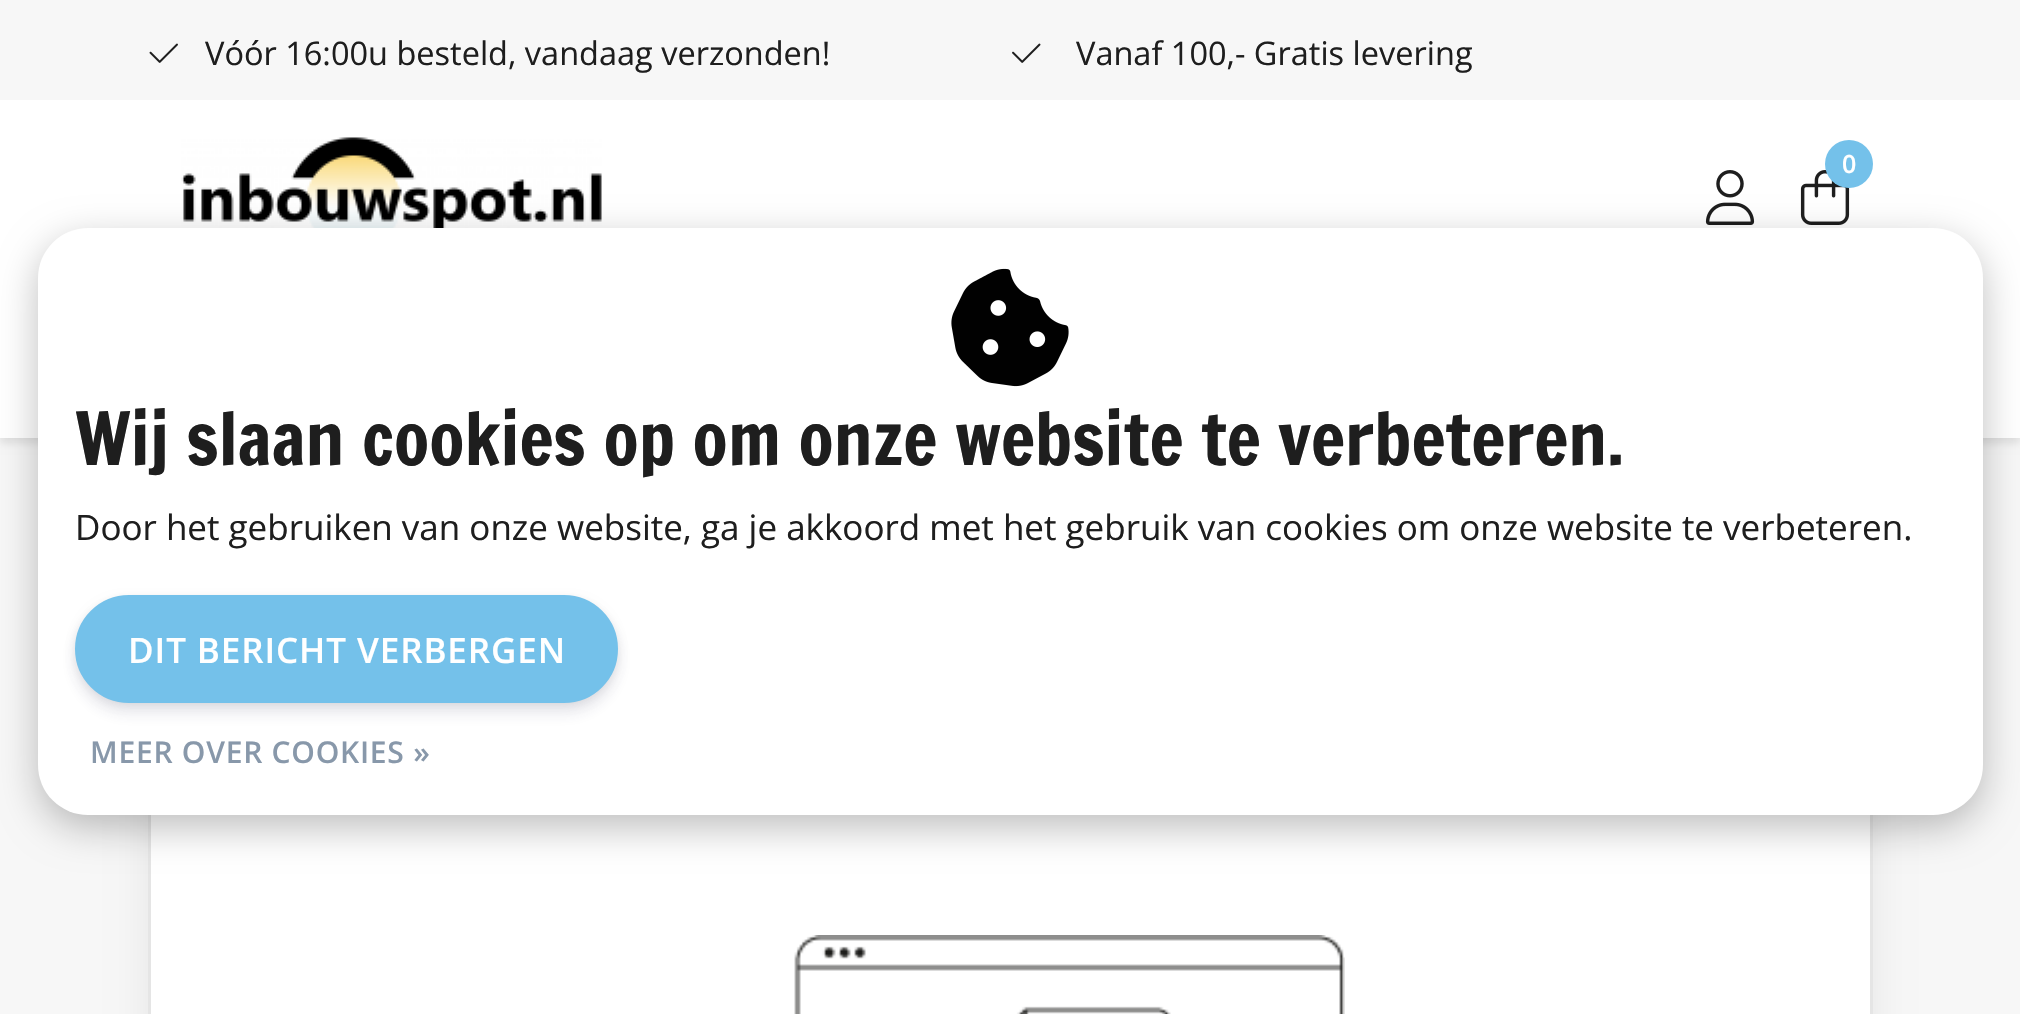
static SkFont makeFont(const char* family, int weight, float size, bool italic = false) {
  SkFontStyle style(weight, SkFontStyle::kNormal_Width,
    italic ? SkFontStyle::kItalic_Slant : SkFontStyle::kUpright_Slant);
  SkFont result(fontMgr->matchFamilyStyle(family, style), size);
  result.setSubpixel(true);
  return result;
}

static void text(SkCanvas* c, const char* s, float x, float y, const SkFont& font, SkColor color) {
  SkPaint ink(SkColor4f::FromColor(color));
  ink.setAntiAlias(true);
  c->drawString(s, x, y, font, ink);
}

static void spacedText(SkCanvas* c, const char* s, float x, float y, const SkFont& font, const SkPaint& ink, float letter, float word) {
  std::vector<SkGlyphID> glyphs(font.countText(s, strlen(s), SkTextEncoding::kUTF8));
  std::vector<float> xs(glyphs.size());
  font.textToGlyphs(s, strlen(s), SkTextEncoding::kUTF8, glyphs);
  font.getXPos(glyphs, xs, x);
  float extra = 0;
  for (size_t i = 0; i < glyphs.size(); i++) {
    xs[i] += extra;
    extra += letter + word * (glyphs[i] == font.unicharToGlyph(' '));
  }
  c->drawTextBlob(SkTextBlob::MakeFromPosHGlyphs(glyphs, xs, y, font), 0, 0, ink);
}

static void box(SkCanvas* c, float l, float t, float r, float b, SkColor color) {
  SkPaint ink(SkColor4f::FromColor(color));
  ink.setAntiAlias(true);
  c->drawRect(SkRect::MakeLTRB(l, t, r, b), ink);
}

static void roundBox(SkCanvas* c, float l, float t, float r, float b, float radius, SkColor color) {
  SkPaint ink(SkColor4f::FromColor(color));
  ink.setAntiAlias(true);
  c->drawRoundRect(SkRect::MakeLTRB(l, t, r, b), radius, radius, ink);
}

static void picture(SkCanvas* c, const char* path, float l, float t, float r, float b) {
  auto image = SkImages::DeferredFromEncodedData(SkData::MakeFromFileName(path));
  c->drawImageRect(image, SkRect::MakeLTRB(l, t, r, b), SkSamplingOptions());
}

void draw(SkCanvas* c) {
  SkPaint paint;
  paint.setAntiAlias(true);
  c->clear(0xfff7f7f7);
  paint.setColor(0x1a000000);
  paint.setMaskFilter(SkMaskFilter::MakeBlur(kNormal_SkBlurStyle, 4));
  c->drawRect(SkRect::MakeLTRB(0, 5, 2020, 443), paint);
  paint.setMaskFilter(nullptr);
  box(c, 0, 100, 2020, 438, 0xffffffff);
  box(c, 0, 0, 2020, 100, 0xfff7f7f7);
  picture(c, "img_01.png", 149, 43, 178, 63);
  SkFont face1 = makeFont("Open Sans", 400, 32.5f);
  text(c, "Vóór 16:00u besteld, vandaag verzonden!", 205, 65, face1, 0xff1e1e1e);
  picture(c, "img_02.png", 1012, 43, 1041, 63);
  text(c, "Vanaf 100,- Gratis levering", 1076, 65, face1, 0xff1e1e1e);
  picture(c, "img_03.png", 181, 137, 602, 228);
  picture(c, "img_04.png", 1800, 170, 1850, 225);
  paint.setColor(0xff74c1ea);
  c->drawCircle(1849, 164, 24, paint);
  SkFont face2 = makeFont("Open Sans", 600, 25);
  text(c, "0", 1842, 173, face2, 0xffffffff);
  picture(c, "img_05.png", 1705, 170, 1755, 225);
  paint.setColor(0x12000000);
  paint.setMaskFilter(SkMaskFilter::MakeBlur(kNormal_SkBlurStyle, 19));
  c->drawRoundRect(SkRect::MakeLTRB(148, 570, 1873, 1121), 50, 50, paint);
  paint.setMaskFilter(nullptr);
  box(c, 151, 815, 1870, 1014, 0xffffffff);
  paint.setStyle(SkPaint::kStroke_Style);
  paint.setStrokeWidth(3);
  paint.setColor(0xffe5e5e5);
  c->drawRect(SkRect::MakeLTRB(149.5f, 559.5f, 1871.5f, 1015.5f), paint);
  picture(c, "img_06.png", 794, 935, 1345, 1014);
  paint.setStyle(SkPaint::kFill_Style);
  paint.setColor(0x40000000);
  paint.setMaskFilter(SkMaskFilter::MakeBlur(kNormal_SkBlurStyle, 19));
  c->drawRoundRect(SkRect::MakeLTRB(38, 240, 1983, 828), 50, 50, paint);
  paint.setMaskFilter(nullptr);
  roundBox(c, 38, 228, 1983, 815, 50, 0xffffffff);
  picture(c, "img_07.png", 951, 268, 1069, 387);
  SkFont face3 = makeFont("Francois One", 400, 72);
  text(c, "Wij slaan cookies op om onze website te verbeteren.", 75, 465, face3, 0xff1e1e1e);
  SkFont face4 = makeFont("Open Sans", 400, 35);
  text(c, "Door het gebruiken van onze website, ga je akkoord met het gebruik van cookies om onze website te verbeteren.", 75, 540, face4, 0xff1e1e1e);
  paint.setColor(0x14000000);
  paint.setMaskFilter(SkMaskFilter::MakeBlur(kNormal_SkBlurStyle, 4));
  c->drawRoundRect(SkRect::MakeLTRB(75, 598, 618, 705), 53.5f, 53.5f, paint);
  paint.setMaskFilter(nullptr);
  paint.setColor(0x1c32325d);
  paint.setMaskFilter(SkMaskFilter::MakeBlur(kNormal_SkBlurStyle, 7.5f));
  c->drawRoundRect(SkRect::MakeLTRB(75, 605, 618, 713), 54, 54, paint);
  paint.setMaskFilter(nullptr);
  paint.setColor(0xff74c1ea);
  c->drawRoundRect(SkRect::MakeLTRB(76.5f, 596.5f, 616.5f, 701.5f), 52.5f, 52.5f, paint);
  paint.setStyle(SkPaint::kStroke_Style);
  c->drawRoundRect(SkRect::MakeLTRB(76.5f, 596.5f, 616.5f, 701.5f), 52.5f, 52.5f, paint);
  SkFont face5 = makeFont("Open Sans", 600, 35);
  paint.setStyle(SkPaint::kFill_Style);
  paint.setColor(0xffffffff);
  spacedText(c, "DIT BERICHT VERBERGEN", 128, 663, face5, paint, 0.9f, 0);
  SkFont face6 = makeFont("Open Sans", 600, 30);
  paint.setColor(0xff8898aa);
  spacedText(c, "MEER OVER COOKIES »", 90, 763, face6, paint, 0.75f, 0);
}
